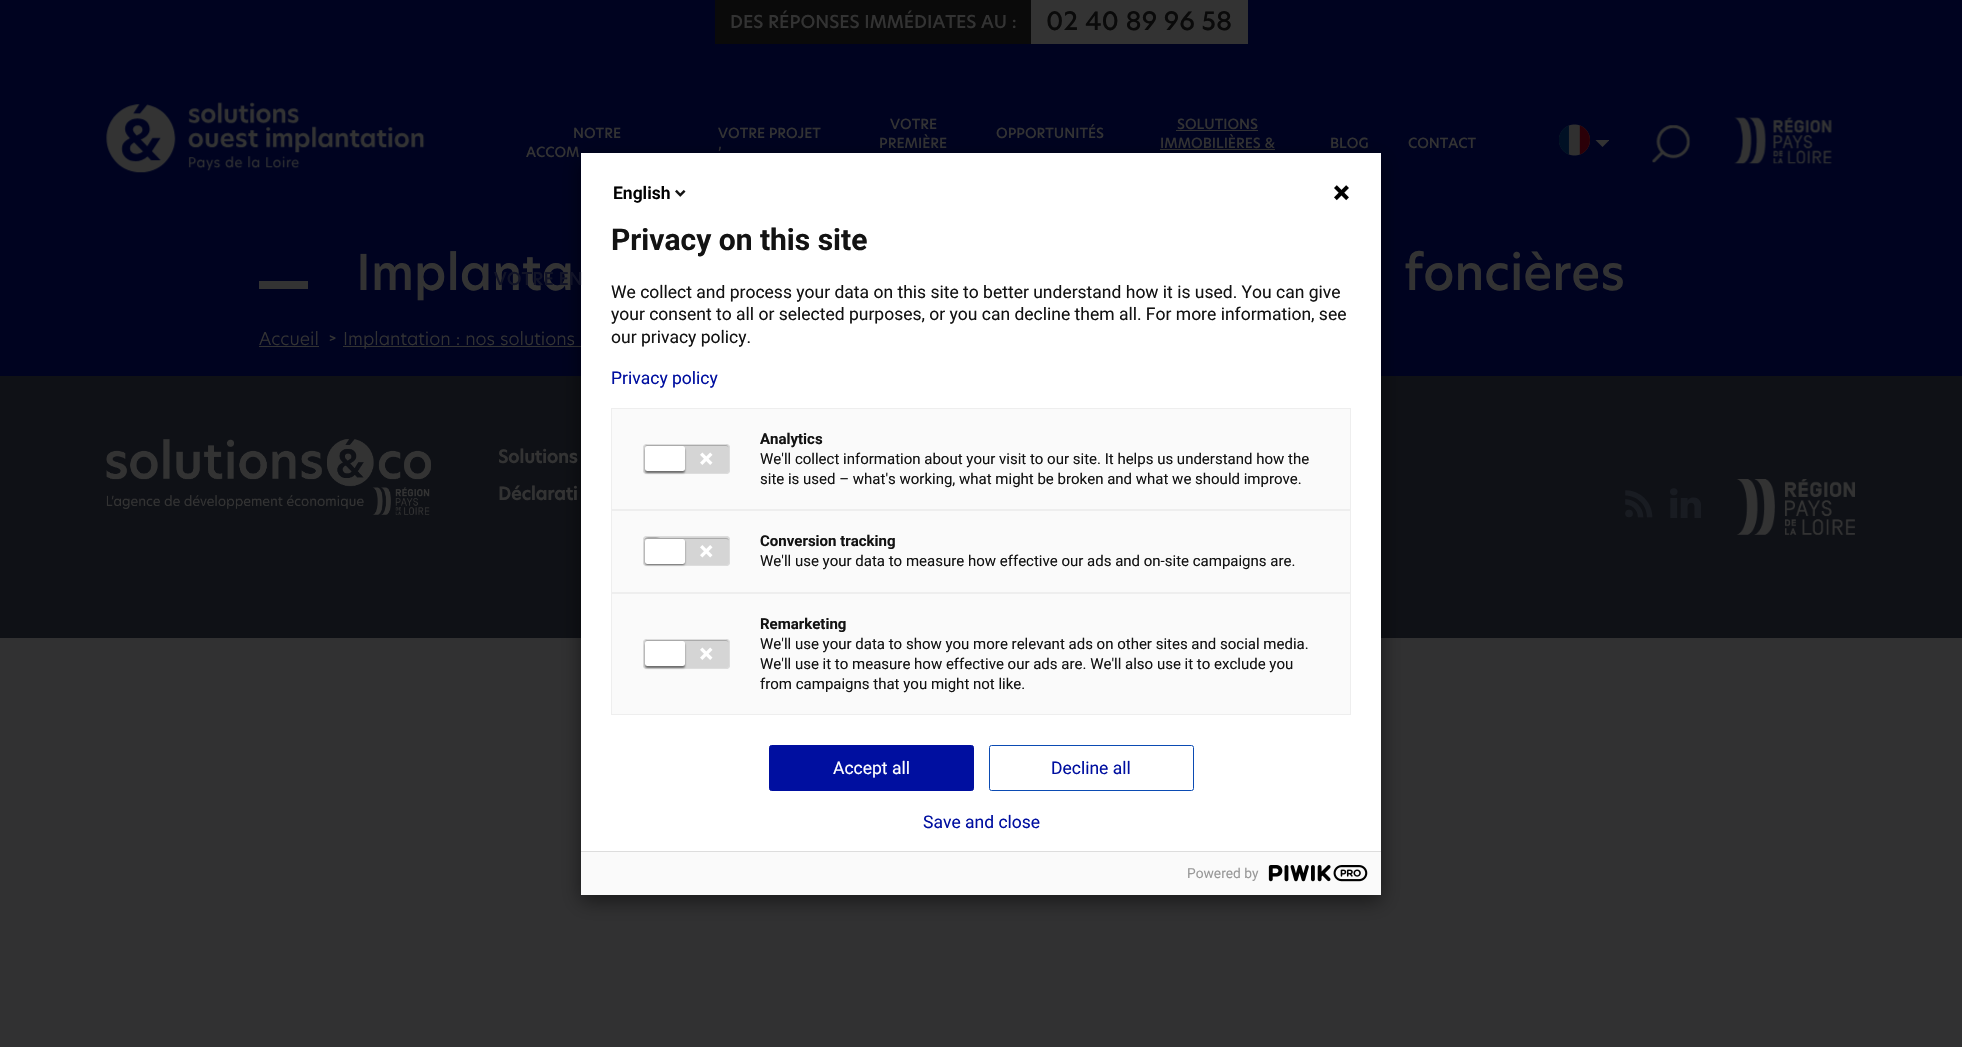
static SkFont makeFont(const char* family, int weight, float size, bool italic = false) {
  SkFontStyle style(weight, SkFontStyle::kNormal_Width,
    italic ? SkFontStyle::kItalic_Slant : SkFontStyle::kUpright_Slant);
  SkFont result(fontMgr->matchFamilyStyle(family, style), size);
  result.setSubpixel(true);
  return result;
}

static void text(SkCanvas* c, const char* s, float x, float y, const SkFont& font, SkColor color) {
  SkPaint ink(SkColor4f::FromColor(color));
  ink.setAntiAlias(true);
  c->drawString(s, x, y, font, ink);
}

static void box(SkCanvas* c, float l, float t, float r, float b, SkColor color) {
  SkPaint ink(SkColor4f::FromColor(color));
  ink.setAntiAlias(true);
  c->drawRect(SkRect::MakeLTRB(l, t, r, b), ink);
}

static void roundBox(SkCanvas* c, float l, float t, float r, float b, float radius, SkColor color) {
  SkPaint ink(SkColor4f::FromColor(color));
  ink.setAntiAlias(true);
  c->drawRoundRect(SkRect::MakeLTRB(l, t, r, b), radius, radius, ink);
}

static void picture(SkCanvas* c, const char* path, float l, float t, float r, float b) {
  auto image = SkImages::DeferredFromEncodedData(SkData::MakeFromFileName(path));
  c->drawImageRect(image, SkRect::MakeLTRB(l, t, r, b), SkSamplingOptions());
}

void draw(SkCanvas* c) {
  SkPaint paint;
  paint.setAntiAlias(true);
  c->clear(0xff313132);
  box(c, 0, 0, 1962, 376, 0xff000320);
  box(c, 715, 0, 1031, 44, 0xff0a0a0a);
  SkFont face1 = makeFont("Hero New", 500, 17.5f);
  text(c, "DES RÉPONSES IMMÉDIATES AU :", 730, 28, face1, 0xff333333);
  box(c, 1031, 0, 1248, 44, 0xff333333);
  SkFont face2 = makeFont("Hero New", 500, 25);
  text(c, "02 40 89 96 58", 1046, 30, face2, 0xff0a0a0a);
  picture(c, "img_01.png", 106, 102, 425, 173);
  SkFont face3 = makeFont("Hero New", 500, 13.75f);
  text(c, "NOTRE", 573, 138, face3, 0xff333333);
  text(c, "ACCOM", 526, 157, face3, 0xff333333);
  text(c, "VOTRE PROJET", 718, 138, face3, 0xff333333);
  text(c, "’", 718, 157, face3, 0xff333333);
  text(c, "VOTRE", 890, 129, face3, 0xff333333);
  text(c, "PREMIÈRE", 879, 148, face3, 0xff333333);
  text(c, "OPPORTUNITÉS", 996, 138, face3, 0xff333333);
  text(c, "SOLUTIONS", 1177, 129, face3, 0xff333333);
  box(c, 1176, 130, 1258, 131, 0xff333333);
  text(c, "IMMOBILIÈRES &", 1160, 148, face3, 0xff333333);
  box(c, 1160, 149, 1275, 150, 0xff333333);
  text(c, "BLOG", 1330, 148, face3, 0xff333333);
  text(c, "CONTACT", 1408, 148, face3, 0xff333333);
  picture(c, "img_02.png", 1559, 124, 1590, 156);
  paint.setColor(0xff333333);
  c->drawPath(SkPathBuilder().moveTo(1602.5f, 147).lineTo(1609, 140.5f).lineTo(1609, 140).lineTo(1595.5f, 140).close().detach(), paint);
  picture(c, "img_03.png", 1652, 125, 1691, 163);
  picture(c, "img_04.png", 1734, 117, 1832, 165);
  box(c, 343, 346, 581, 347, 0xff333333);
  box(c, 0, 376, 1962, 638, 0xff0f1116);
  paint.setColor(0x80000000);
  paint.setMaskFilter(SkMaskFilter::MakeBlur(kNormal_SkBlurStyle, 9.5f));
  c->drawRect(SkRect::MakeLTRB(581, 159, 1381, 901), paint);
  paint.setMaskFilter(nullptr);
  box(c, 581, 153, 1381, 851, 0xffffffff);
  SkFont face4 = makeFont("Roboto", 600, 17.5f);
  text(c, "English", 613, 199, face4, 0xff000000);
  picture(c, "img_05.png", 675, 189, 686, 197);
  picture(c, "img_06.png", 1334, 185, 1349, 201);
  SkFont face5 = makeFont("Roboto", 700, 30);
  text(c, "Privacy on this site", 611, 250, face5, 0xff131313);
  SkFont face6 = makeFont("Roboto", 400, 17.5f);
  text(c, "We collect and process your data on this site to better understand how it is used. You can give", 611, 298, face6, 0xff131313);
  text(c, "your consent to all or selected purposes, or you can decline them all. For more information, see", 611, 320, face6, 0xff131313);
  text(c, "our privacy policy.", 611, 343, face6, 0xff131313);
  text(c, "Privacy policy", 611, 384, face6, 0xff000fa0);
  paint.setColor(0xfffafafa);
  c->drawRect(SkRect::MakeLTRB(611.5f, 408.5f, 1350.5f, 509.5f), paint);
  paint.setStyle(SkPaint::kStroke_Style);
  paint.setStrokeWidth(1);
  paint.setColor(0xffeeeeee);
  c->drawRect(SkRect::MakeLTRB(611.5f, 408.5f, 1350.5f, 509.5f), paint);
  roundBox(c, 643, 444, 730, 474, 4, 0xffd5d5d5);
  paint.setStyle(SkPaint::kFill_Style);
  paint.setColor(0xffaaaaaa);
  c->drawPath(SkPathBuilder().moveTo(646, 446).lineTo(726, 446).cubicTo(728, 446, 729, 447, 729, 449).cubicTo(729, 441, 719, 445, 713, 445).lineTo(660, 445).cubicTo(654, 445, 644, 441, 644, 449).cubicTo(644, 447, 645, 446, 646, 446).close().detach(), paint);
  paint.setStyle(SkPaint::kStroke_Style);
  paint.setColor(0xffdddddd);
  c->drawRoundRect(SkRect::MakeLTRB(643.5f, 444.5f, 729.5f, 473.5f), 3.5f, 3.5f, paint);
  paint.setStyle(SkPaint::kFill_Style);
  paint.setColor(0x80000000);
  paint.setMaskFilter(SkMaskFilter::MakeBlur(kNormal_SkBlurStyle, 1));
  c->drawRoundRect(SkRect::MakeLTRB(645, 448, 685, 473), 2.5f, 2.5f, paint);
  paint.setMaskFilter(nullptr);
  roundBox(c, 645, 446, 685, 471, 2.5f, 0xffffffff);
  picture(c, "img_07.png", 700, 452, 713, 465);
  SkFont face7 = makeFont("Roboto", 700, 15);
  text(c, "Analytics", 760, 444, face7, 0xff131313);
  SkFont face8 = makeFont("Roboto", 400, 15);
  text(c, "We'll collect information about your visit to our site. It helps us understand how the", 760, 464, face8, 0xff131313);
  text(c, "site is used – what's working, what might be broken and what we should improve.", 760, 484, face8, 0xff131313);
  paint.setColor(0xfffafafa);
  c->drawRect(SkRect::MakeLTRB(611.5f, 510.5f, 1350.5f, 592.5f), paint);
  paint.setStyle(SkPaint::kStroke_Style);
  paint.setColor(0xffeeeeee);
  c->drawRect(SkRect::MakeLTRB(611.5f, 510.5f, 1350.5f, 592.5f), paint);
  roundBox(c, 643, 536, 730, 566, 4, 0xffd5d5d5);
  paint.setStyle(SkPaint::kFill_Style);
  paint.setColor(0xffaaaaaa);
  c->drawPath(SkPathBuilder().moveTo(646, 539).lineTo(726, 539).cubicTo(728, 539, 729, 540, 729, 541).cubicTo(729, 539, 728, 538, 726, 538).lineTo(660, 538).cubicTo(660, 538, 644, 534, 644, 541).cubicTo(644, 540, 645, 539, 646, 539).close().detach(), paint);
  paint.setStyle(SkPaint::kStroke_Style);
  paint.setColor(0xffdddddd);
  c->drawRoundRect(SkRect::MakeLTRB(643.5f, 536.5f, 729.5f, 565.5f), 3.5f, 3.5f, paint);
  paint.setStyle(SkPaint::kFill_Style);
  paint.setColor(0x80000000);
  paint.setMaskFilter(SkMaskFilter::MakeBlur(kNormal_SkBlurStyle, 1));
  c->drawRoundRect(SkRect::MakeLTRB(645, 540, 685, 565), 2.5f, 2.5f, paint);
  paint.setMaskFilter(nullptr);
  roundBox(c, 645, 539, 685, 564, 2.5f, 0xffffffff);
  picture(c, "img_08.png", 700, 545, 713, 558);
  text(c, "Conversion tracking", 760, 546, face7, 0xff131313);
  text(c, "We'll use your data to measure how effective our ads and on-site campaigns are.", 760, 566, face8, 0xff131313);
  paint.setColor(0xfffafafa);
  c->drawRect(SkRect::MakeLTRB(611.5f, 593.5f, 1350.5f, 714.5f), paint);
  paint.setStyle(SkPaint::kStroke_Style);
  paint.setColor(0xffeeeeee);
  c->drawRect(SkRect::MakeLTRB(611.5f, 593.5f, 1350.5f, 714.5f), paint);
  roundBox(c, 643, 639, 730, 669, 4, 0xffd5d5d5);
  paint.setStyle(SkPaint::kFill_Style);
  paint.setColor(0xffaaaaaa);
  c->drawPath(SkPathBuilder().moveTo(646, 641).lineTo(726, 641).cubicTo(728, 641, 729, 642, 729, 644).cubicTo(729, 636, 719, 640, 713, 640).lineTo(660, 640).cubicTo(654, 640, 644, 636, 644, 644).cubicTo(644, 642, 645, 641, 646, 641).close().detach(), paint);
  paint.setStyle(SkPaint::kStroke_Style);
  paint.setColor(0xffdddddd);
  c->drawRoundRect(SkRect::MakeLTRB(643.5f, 639.5f, 729.5f, 668.5f), 3.5f, 3.5f, paint);
  paint.setStyle(SkPaint::kFill_Style);
  paint.setColor(0x80000000);
  paint.setMaskFilter(SkMaskFilter::MakeBlur(kNormal_SkBlurStyle, 1));
  c->drawRoundRect(SkRect::MakeLTRB(645, 643, 685, 668), 2.5f, 2.5f, paint);
  paint.setMaskFilter(nullptr);
  roundBox(c, 645, 641, 685, 666, 2.5f, 0xffffffff);
  picture(c, "img_07.png", 700, 647, 713, 660);
  text(c, "Remarketing", 760, 629, face7, 0xff131313);
  text(c, "We'll use your data to show you more relevant ads on other sites and social media.", 760, 649, face8, 0xff131313);
  text(c, "We'll use it to measure how effective our ads are. We'll also use it to exclude you", 760, 669, face8, 0xff131313);
  text(c, "from campaigns that you might not like.", 760, 689, face8, 0xff131313);
  paint.setColor(0xff000fa0);
  c->drawRoundRect(SkRect::MakeLTRB(769.5f, 745.5f, 973.5f, 790.5f), 2, 2, paint);
  paint.setStyle(SkPaint::kStroke_Style);
  c->drawRoundRect(SkRect::MakeLTRB(769.5f, 745.5f, 973.5f, 790.5f), 2, 2, paint);
  text(c, "Accept all", 833, 774, face6, 0xffffffff);
  paint.setColor(0xff0b4bb3);
  c->drawRoundRect(SkRect::MakeLTRB(989.5f, 745.5f, 1193.5f, 790.5f), 2, 2, paint);
  text(c, "Decline all", 1051, 774, face6, 0xff000fa0);
  text(c, "Save and close", 923, 828, face6, 0xff000fa0);
  box(c, 581, 852, 1381, 895, 0xfffafafa);
  box(c, 581, 851, 1381, 852, 0xffdddddd);
  SkFont face9 = makeFont("Roboto", 400, 13.75f);
  text(c, "Powered by", 1187, 878, face9, 0xff999999);
  picture(c, "img_09.png", 1268, 865, 1368, 882);
  box(c, 259, 281, 308, 289, 0xff333333);
  SkFont face10 = makeFont("Hero New", 500, 48.5f);
  text(c, "Implanta", 356, 290, face10, 0xff333333);
  text(c, "foncières", 1404, 290, face10, 0xff333333);
  SkFont face11 = makeFont("Hero New", 300, 17.5f);
  text(c, "Accueil", 259, 345, face11, 0xff333333);
  box(c, 259, 346, 319, 347, 0xff333333);
  SkFont face12 = makeFont("Hero New", 700, 10);
  text(c, ">", 329, 342, face12, 0xff333333);
  text(c, "Implantation : nos solutions", 343, 345, face11, 0xff333333);
  text(c, "VOTRE EN", 494, 285, face1, 0xff121427);
  picture(c, "img_10.png", 106, 439, 431, 515);
  SkFont face13 = makeFont("Hero New", 700, 17.5f);
  text(c, "Solutions", 498, 463, face13, 0xff333333);
  text(c, "Déclarati", 498, 500, face13, 0xff333333);
  picture(c, "img_11.png", 1625, 490, 1653, 518);
  picture(c, "img_12.png", 1670, 488, 1701, 518);
  picture(c, "img_13.png", 1736, 479, 1855, 535);
}
